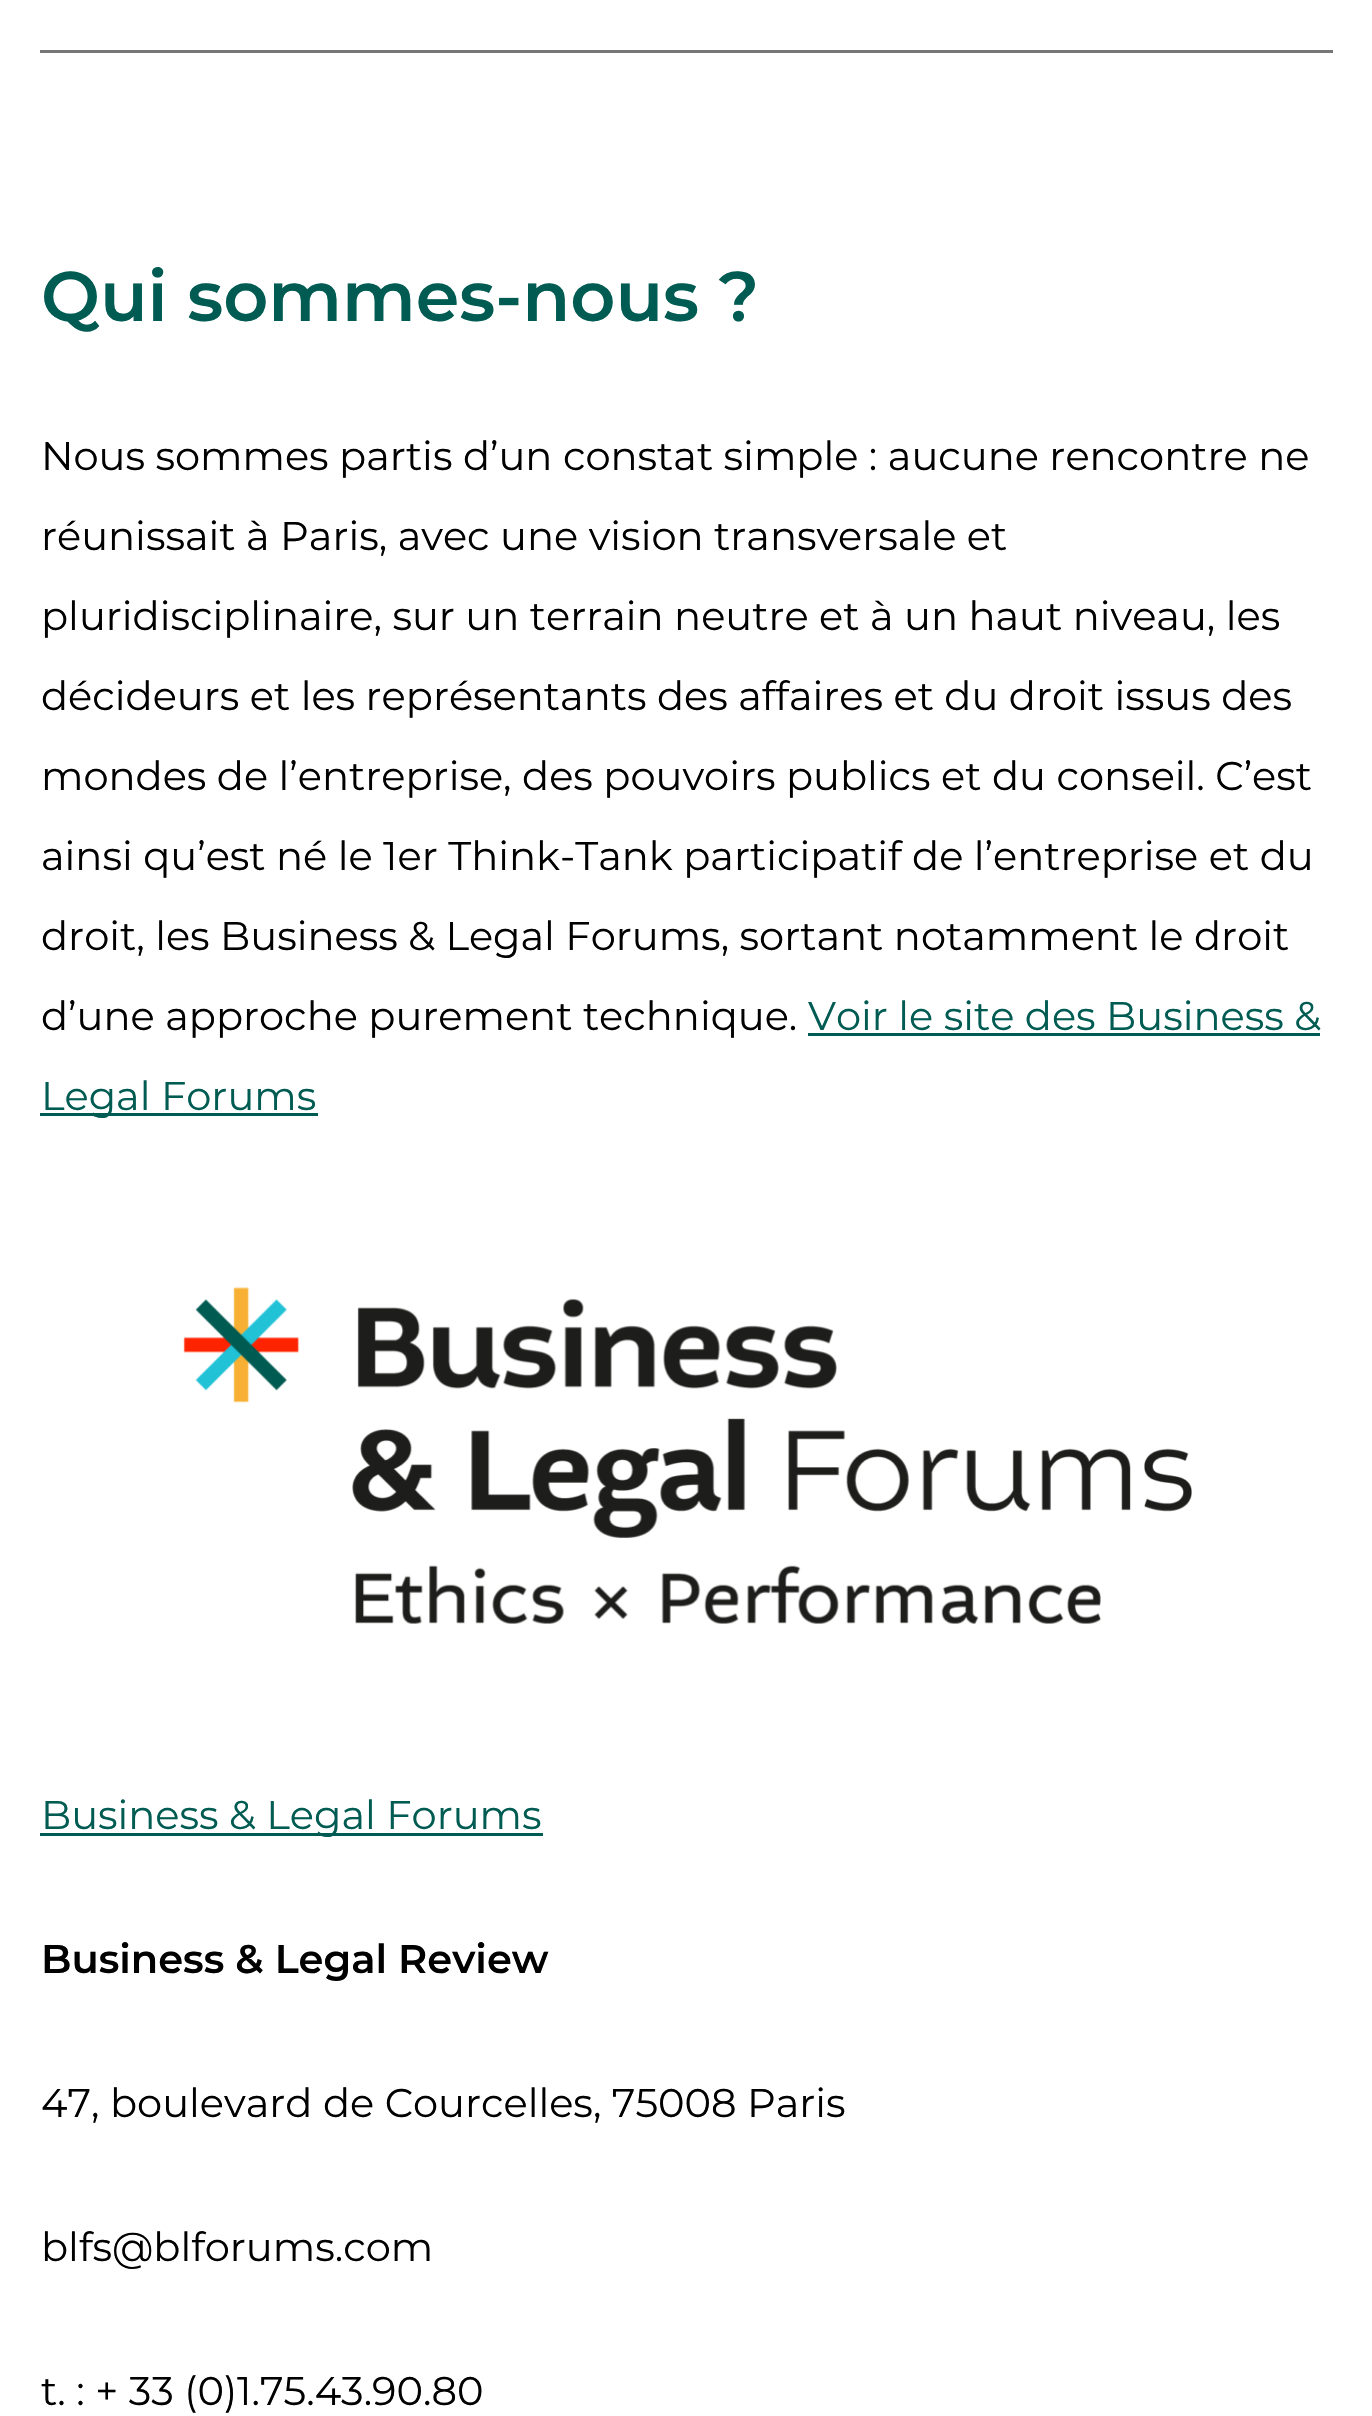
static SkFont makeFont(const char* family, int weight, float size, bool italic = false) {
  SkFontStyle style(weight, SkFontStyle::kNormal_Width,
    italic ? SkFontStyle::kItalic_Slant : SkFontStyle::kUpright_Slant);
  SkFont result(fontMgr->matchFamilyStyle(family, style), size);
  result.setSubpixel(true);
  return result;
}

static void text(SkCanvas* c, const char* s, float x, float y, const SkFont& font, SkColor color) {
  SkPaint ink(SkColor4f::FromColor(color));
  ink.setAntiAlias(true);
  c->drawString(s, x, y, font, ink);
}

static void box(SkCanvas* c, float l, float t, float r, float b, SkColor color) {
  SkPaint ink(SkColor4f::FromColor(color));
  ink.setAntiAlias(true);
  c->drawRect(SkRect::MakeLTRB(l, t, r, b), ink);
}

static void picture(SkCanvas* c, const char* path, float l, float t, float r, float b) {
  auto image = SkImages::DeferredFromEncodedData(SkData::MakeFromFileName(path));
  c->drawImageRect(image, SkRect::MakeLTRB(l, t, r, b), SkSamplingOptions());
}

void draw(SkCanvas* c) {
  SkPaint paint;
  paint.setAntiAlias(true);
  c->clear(0xffffffff);
  box(c, 40, 50, 1333, 53, 0xff767676);
  SkFont face1 = makeFont("Montserrat", 600, 70);
  text(c, "Qui sommes-nous ?", 41, 321, face1, 0xff005b52);
  SkFont face2 = makeFont("Montserrat", 400, 40);
  text(c, "Nous sommes partis d’un constat simple : aucune rencontre ne", 41, 470, face2, 0xff000000);
  text(c, "réunissait à Paris, avec une vision transversale et", 41, 550, face2, 0xff000000);
  text(c, "pluridisciplinaire, sur un terrain neutre et à un haut niveau, les", 41, 630, face2, 0xff000000);
  text(c, "décideurs et les représentants des affaires et du droit issus des", 41, 710, face2, 0xff000000);
  text(c, "mondes de l’entreprise, des pouvoirs publics et du conseil. C’est", 41, 790, face2, 0xff000000);
  text(c, "ainsi qu’est né le 1er Think-Tank participatif de l’entreprise et du", 41, 870, face2, 0xff000000);
  text(c, "droit, les Business & Legal Forums, sortant notamment le droit", 41, 950, face2, 0xff000000);
  text(c, "d’une approche purement technique.", 41, 1030, face2, 0xff000000);
  text(c, "Voir le site des Business &", 808, 1030, face2, 0xff005b52);
  box(c, 808, 1033, 1320, 1036, 0xff005b52);
  box(c, 40, 1113, 318, 1116, 0xff005b52);
  text(c, "Legal Forums", 41, 1110, face2, 0xff005b52);
  picture(c, "img_01.png", 183, 1287, 1192, 1624);
  box(c, 40, 1833, 543, 1836, 0xff005b52);
  text(c, "Business & Legal Forums", 41, 1829, face2, 0xff005b52);
  SkFont face3 = makeFont("Montserrat", 600, 40);
  text(c, "Business & Legal Review", 41, 1973, face3, 0xff000000);
  text(c, "47, boulevard de Courcelles, 75008 Paris", 41, 2117, face2, 0xff000000);
  text(c, "blfs@blforums.com", 41, 2261, face2, 0xff000000);
  text(c, "t. : + 33 (0)1.75.43.90.80", 41, 2405, face2, 0xff000000);
}
